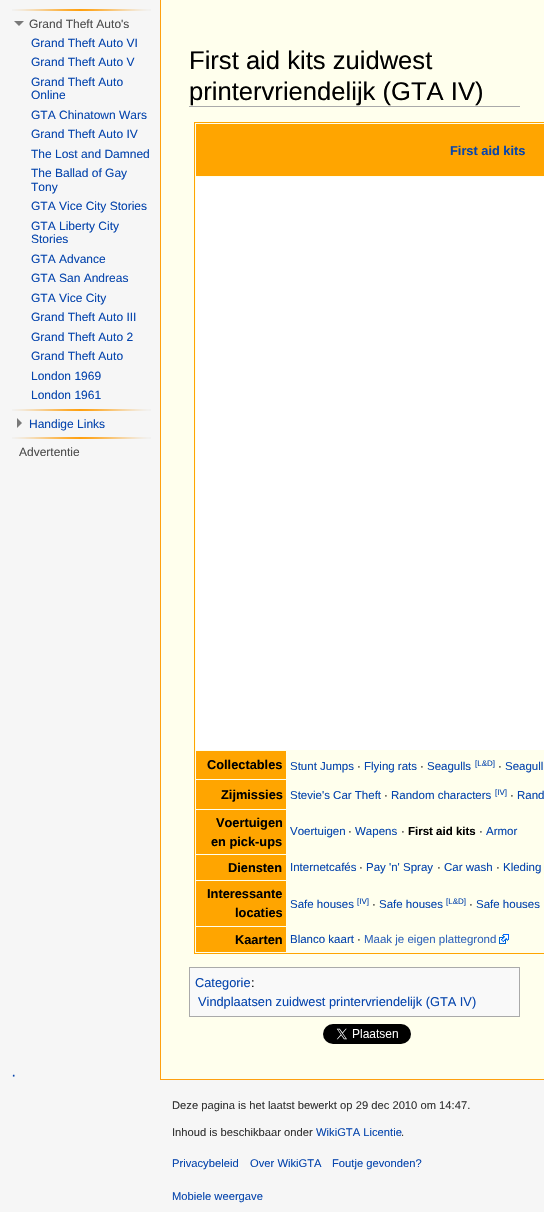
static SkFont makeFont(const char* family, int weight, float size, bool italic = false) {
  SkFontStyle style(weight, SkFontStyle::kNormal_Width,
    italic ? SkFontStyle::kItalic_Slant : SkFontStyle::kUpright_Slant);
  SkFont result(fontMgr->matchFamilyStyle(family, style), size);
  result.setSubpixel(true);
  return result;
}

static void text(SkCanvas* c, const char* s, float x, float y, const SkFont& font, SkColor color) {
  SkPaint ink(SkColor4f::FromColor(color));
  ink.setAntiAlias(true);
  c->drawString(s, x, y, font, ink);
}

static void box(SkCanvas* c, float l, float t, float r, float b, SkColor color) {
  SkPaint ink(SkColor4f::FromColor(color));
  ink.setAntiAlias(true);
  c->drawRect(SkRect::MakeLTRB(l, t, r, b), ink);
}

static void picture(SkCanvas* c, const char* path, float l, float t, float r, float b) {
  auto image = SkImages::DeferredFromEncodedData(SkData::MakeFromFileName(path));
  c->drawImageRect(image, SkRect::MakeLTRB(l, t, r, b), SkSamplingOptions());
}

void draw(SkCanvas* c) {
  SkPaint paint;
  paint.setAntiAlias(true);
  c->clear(0xfff6f6f6);
  picture(c, "img_01.png", 12, 9, 151, 11);
  paint.setColor(0xff797979);
  c->drawPath(SkPathBuilder().moveTo(24, 21).lineTo(19, 26).lineTo(14, 21).close().detach(), paint);
  SkFont face1 = makeFont("Liberation Sans", 400, 12);
  text(c, "Grand Theft Auto's", 29, 28, face1, 0xff4d4d4d);
  text(c, "Grand Theft Auto VI", 31, 47, face1, 0xff0645ad);
  text(c, "Grand Theft Auto V", 31, 66, face1, 0xff0645ad);
  text(c, "Grand Theft Auto", 31, 86, face1, 0xff0645ad);
  text(c, "Online", 31, 99, face1, 0xff0645ad);
  text(c, "GTA Chinatown Wars", 31, 119, face1, 0xff0645ad);
  text(c, "Grand Theft Auto IV", 31, 138, face1, 0xff0645ad);
  text(c, "The Lost and Damned", 31, 158, face1, 0xff0645ad);
  text(c, "The Ballad of Gay", 31, 177, face1, 0xff0645ad);
  text(c, "Tony", 31, 191, face1, 0xff0645ad);
  text(c, "GTA Vice City Stories", 31, 210, face1, 0xff0645ad);
  text(c, "GTA Liberty City", 31, 230, face1, 0xff0645ad);
  text(c, "Stories", 31, 243, face1, 0xff0645ad);
  text(c, "GTA Advance", 31, 263, face1, 0xff0645ad);
  text(c, "GTA San Andreas", 31, 282, face1, 0xff0645ad);
  text(c, "GTA Vice City", 31, 302, face1, 0xff0645ad);
  text(c, "Grand Theft Auto III", 31, 321, face1, 0xff0645ad);
  text(c, "Grand Theft Auto 2", 31, 341, face1, 0xff0645ad);
  text(c, "Grand Theft Auto", 31, 360, face1, 0xff0645ad);
  text(c, "London 1969", 31, 380, face1, 0xff0645ad);
  text(c, "London 1961", 31, 399, face1, 0xff0645ad);
  picture(c, "img_01.png", 12, 409, 151, 411);
  c->drawPath(SkPathBuilder().moveTo(17, 418).lineTo(22, 423).lineTo(17, 428).close().detach(), paint);
  text(c, "Handige Links", 29, 428, face1, 0xff0645ad);
  picture(c, "img_01.png", 12, 437, 151, 439);
  text(c, "Advertentie", 19, 456, face1, 0xff4d4d4d);
  SkFont face2 = makeFont("Liberation Sans", 400, 16);
  text(c, "·", 11, 1080, face2, 0xff0645ad);
  box(c, 161, 0, 544, 1079, 0xffffffed);
  box(c, 160, 1079, 544, 1080, 0xffffa00f);
  box(c, 160, 0, 161, 1080, 0xffffa00f);
  box(c, 189, 106, 520, 107, 0xffaaaaaa);
  SkFont face3 = makeFont("Liberation Sans", 400, 25.6f);
  text(c, "First aid kits zuidwest", 189, 69, face3, 0xff000000);
  text(c, "printervriendelijk (GTA IV)", 189, 100, face3, 0xff000000);
  paint.setStyle(SkPaint::kStroke_Style);
  paint.setStrokeWidth(1);
  paint.setColor(0xffffa500);
  c->drawRect(SkRect::MakeLTRB(194.5f, 122.5f, 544.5f, 953.5f), paint);
  box(c, 196, 124, 544, 176, 0xffffa500);
  SkFont face4 = makeFont("Liberation Sans", 700, 12.8f);
  text(c, "First aid kits", 450, 155, face4, 0xff0645ad);
  box(c, 196, 177, 544, 750, 0xffffffff);
  box(c, 196, 751, 286, 779, 0xffffa500);
  text(c, "Collectables", 207, 769, face4, 0xff000000);
  SkFont face5 = makeFont("Liberation Sans", 400, 11.5f);
  text(c, "Stunt Jumps", 290, 770, face5, 0xff0645ad);
  text(c, "·", 357, 770, face5, 0xff000000);
  text(c, "Flying rats", 364, 770, face5, 0xff0645ad);
  text(c, "·", 420, 770, face5, 0xff000000);
  text(c, "Seagulls", 427, 770, face5, 0xff0645ad);
  SkFont face6 = makeFont("Liberation Sans", 400, 8);
  text(c, "[L&D]", 475, 766, face6, 0xff0645ad);
  text(c, "·", 498, 770, face5, 0xff000000);
  text(c, "Seagull", 505, 770, face5, 0xff0645ad);
  box(c, 196, 780, 286, 809, 0xffffa500);
  text(c, "Zijmissies", 221, 799, face4, 0xff000000);
  text(c, "Stevie's Car Theft", 290, 799, face5, 0xff0645ad);
  text(c, "·", 384, 799, face5, 0xff000000);
  text(c, "Random characters", 391, 799, face5, 0xff0645ad);
  text(c, "[IV]", 495, 795, face6, 0xff0645ad);
  text(c, "·", 510, 799, face5, 0xff000000);
  text(c, "Rand", 517, 799, face5, 0xff0645ad);
  box(c, 196, 810, 286, 854, 0xffffa500);
  text(c, "Voertuigen", 216, 827, face4, 0xff000000);
  text(c, "en pick-ups", 211, 846, face4, 0xff000000);
  text(c, "Voertuigen", 290, 835, face5, 0xff0645ad);
  text(c, "·", 348, 835, face5, 0xff000000);
  text(c, "Wapens", 355, 835, face5, 0xff0645ad);
  text(c, "·", 401, 835, face5, 0xff000000);
  SkFont face7 = makeFont("Liberation Sans", 700, 11.5f);
  text(c, "First aid kits", 408, 835, face7, 0xff000000);
  text(c, "·", 479, 835, face5, 0xff000000);
  text(c, "Armor", 486, 835, face5, 0xff0645ad);
  box(c, 196, 855, 286, 880, 0xffffa500);
  text(c, "Diensten", 228, 872, face4, 0xff000000);
  text(c, "Internetcafés", 290, 871, face5, 0xff0645ad);
  text(c, "·", 359, 871, face5, 0xff000000);
  text(c, "Pay 'n' Spray", 366, 871, face5, 0xff0645ad);
  text(c, "·", 437, 871, face5, 0xff000000);
  text(c, "Car wash", 444, 871, face5, 0xff0645ad);
  text(c, "·", 496, 871, face5, 0xff000000);
  text(c, "Kleding", 503, 871, face5, 0xff0645ad);
  box(c, 196, 881, 286, 926, 0xffffa500);
  text(c, "Interessante", 207, 898, face4, 0xff000000);
  text(c, "locaties", 235, 917, face4, 0xff000000);
  text(c, "Safe houses", 290, 908, face5, 0xff0645ad);
  text(c, "[IV]", 357, 904, face6, 0xff0645ad);
  text(c, "·", 372, 908, face5, 0xff000000);
  text(c, "Safe houses", 379, 908, face5, 0xff0645ad);
  text(c, "[L&D]", 446, 904, face6, 0xff0645ad);
  text(c, "·", 469, 908, face5, 0xff000000);
  text(c, "Safe houses", 476, 908, face5, 0xff0645ad);
  box(c, 196, 927, 286, 952, 0xffffa500);
  text(c, "Kaarten", 235, 944, face4, 0xff000000);
  text(c, "Blanco kaart", 290, 943, face5, 0xff0645ad);
  text(c, "·", 357, 943, face5, 0xff000000);
  text(c, "Maak je eigen plattegrond", 364, 943, face5, 0xff3366bb);
  picture(c, "img_02.png", 499, 934, 509, 944);
  paint.setStyle(SkPaint::kFill_Style);
  paint.setColor(0xfff9f9f9);
  c->drawRect(SkRect::MakeLTRB(189.5f, 967.5f, 519.5f, 1016.5f), paint);
  paint.setStyle(SkPaint::kStroke_Style);
  paint.setColor(0xffaaaaaa);
  c->drawRect(SkRect::MakeLTRB(189.5f, 967.5f, 519.5f, 1016.5f), paint);
  SkFont face8 = makeFont("Liberation Sans", 400, 12.8f);
  text(c, "Categorie", 195, 987, face8, 0xff0645ad);
  text(c, ":", 251, 987, face8, 0xff000000);
  text(c, "Vindplaatsen zuidwest printervriendelijk (GTA IV)", 198, 1006, face8, 0xff0645ad);
  picture(c, "img_03.png", 323, 1024, 411, 1044);
  SkFont face9 = makeFont("Liberation Sans", 400, 11.2f);
  text(c, "Deze pagina is het laatst bewerkt op 29 dec 2010 om 14:47.", 172, 1109, face9, 0xff333333);
  text(c, "Inhoud is beschikbaar onder", 172, 1136, face9, 0xff333333);
  text(c, "WikiGTA Licentie", 316, 1136, face9, 0xff0645ad);
  text(c, ".", 401, 1136, face9, 0xff333333);
  text(c, "Privacybeleid", 172, 1167, face9, 0xff0645ad);
  text(c, "Over WikiGTA", 250, 1167, face9, 0xff0645ad);
  text(c, "Foutje gevonden?", 332, 1167, face9, 0xff0645ad);
  text(c, "Mobiele weergave", 172, 1200, face9, 0xff0645ad);
}
